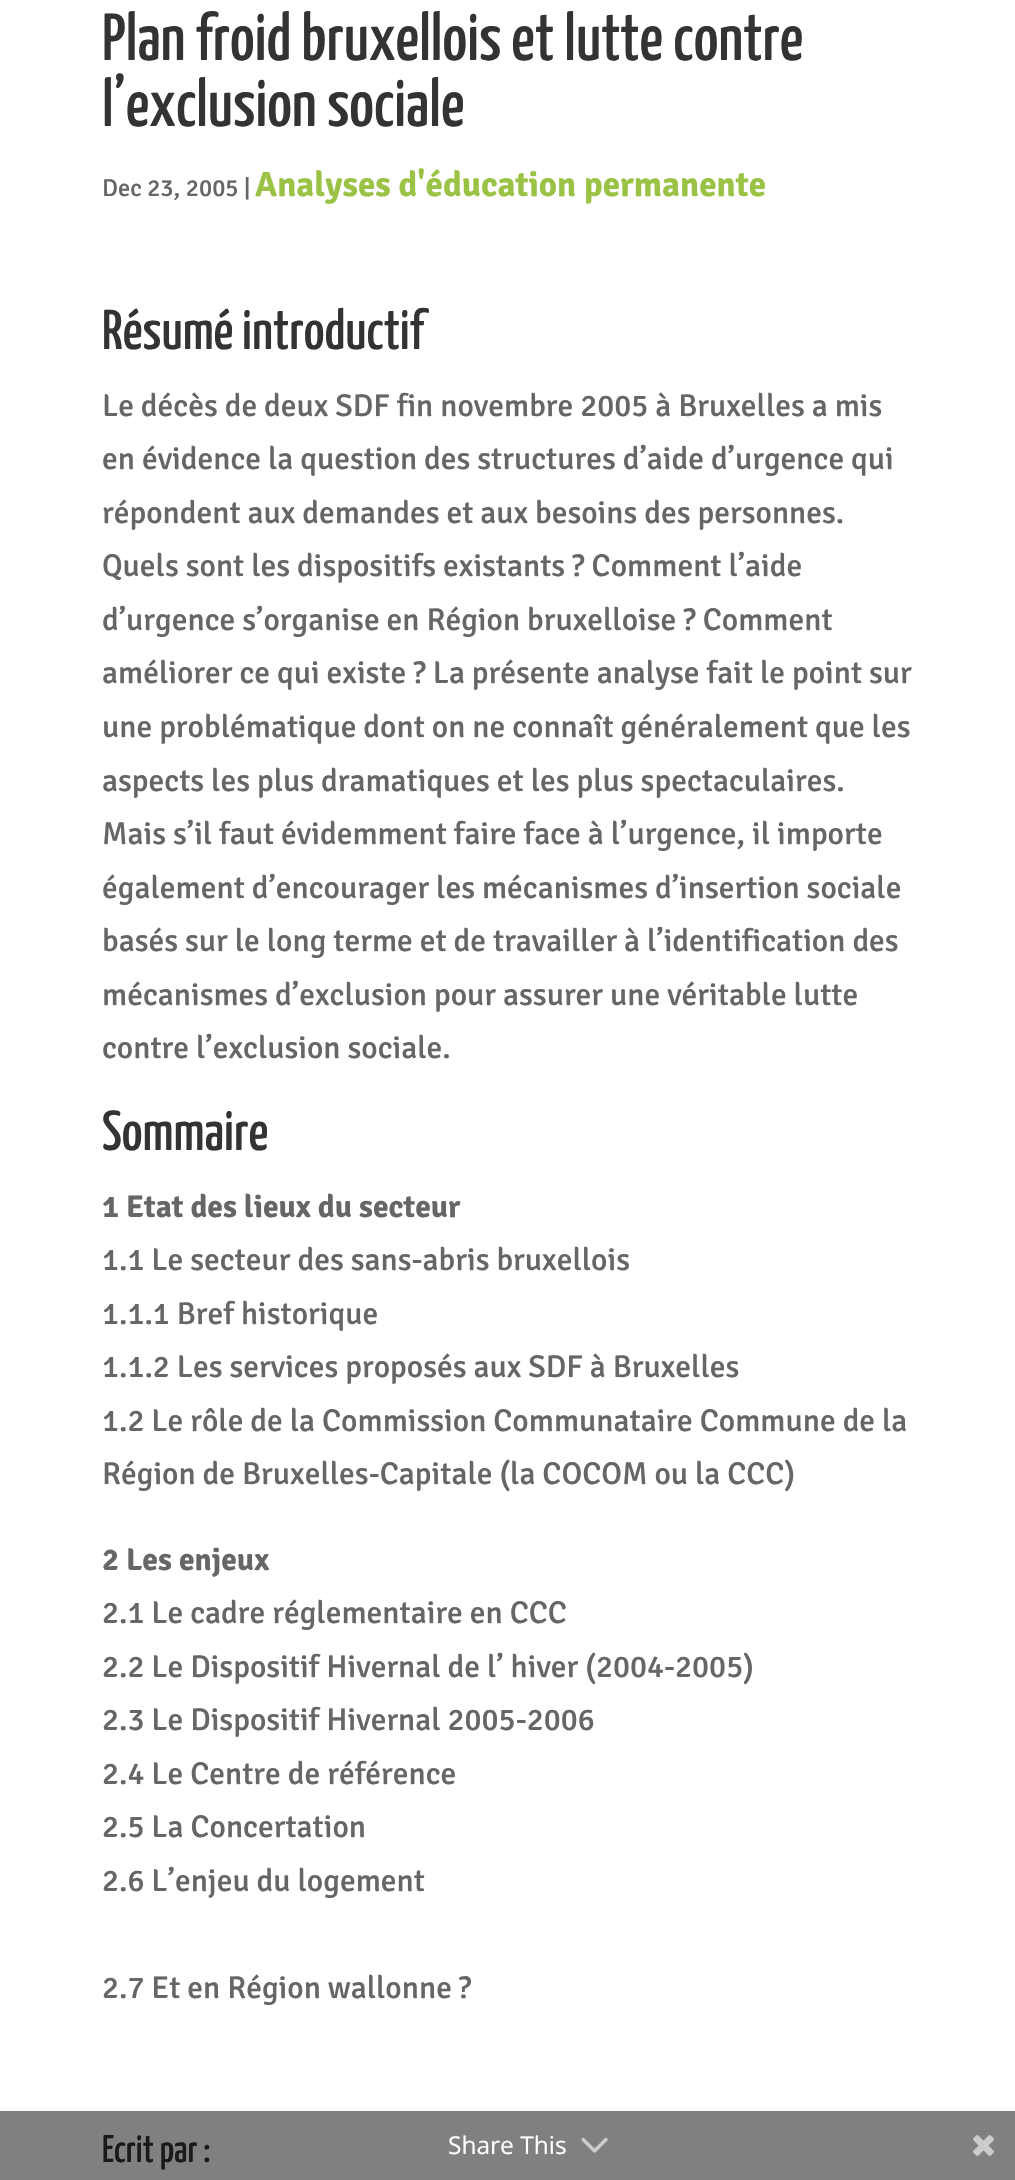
static SkFont makeFont(const char* family, int weight, float size, bool italic = false) {
  SkFontStyle style(weight, SkFontStyle::kNormal_Width,
    italic ? SkFontStyle::kItalic_Slant : SkFontStyle::kUpright_Slant);
  SkFont result(fontMgr->matchFamilyStyle(family, style), size);
  result.setSubpixel(true);
  return result;
}

static void text(SkCanvas* c, const char* s, float x, float y, const SkFont& font, SkColor color) {
  SkPaint ink(SkColor4f::FromColor(color));
  ink.setAntiAlias(true);
  c->drawString(s, x, y, font, ink);
}

static void box(SkCanvas* c, float l, float t, float r, float b, SkColor color) {
  SkPaint ink(SkColor4f::FromColor(color));
  ink.setAntiAlias(true);
  c->drawRect(SkRect::MakeLTRB(l, t, r, b), ink);
}

static void picture(SkCanvas* c, const char* path, float l, float t, float r, float b) {
  auto image = SkImages::DeferredFromEncodedData(SkData::MakeFromFileName(path));
  c->drawImageRect(image, SkRect::MakeLTRB(l, t, r, b), SkSamplingOptions());
}

void draw(SkCanvas* c) {
  SkPaint paint;
  paint.setAntiAlias(true);
  c->clear(0xffffffff);
  box(c, 0, 2111, 1015, 2180, 0xff808080);
  SkFont face1 = makeFont("Yanone Kaffeesatz", 500, 66.5f);
  text(c, "Plan froid bruxellois et lutte contre", 102, 60, face1, 0xff333333);
  text(c, "l’exclusion sociale", 102, 126, face1, 0xff333333);
  SkFont face2 = makeFont("Signika Negative", 500, 24.5f);
  text(c, "Dec 23, 2005 |", 102, 196, face2, 0xff666666);
  SkFont face3 = makeFont("Signika Negative", 700, 35);
  text(c, "Analyses d'éducation permanente", 255, 196, face3, 0xff9ac244);
  SkFont face4 = makeFont("Yanone Kaffeesatz", 500, 56);
  text(c, "Résumé introductif", 102, 349, face4, 0xff333333);
  SkFont face5 = makeFont("Signika Negative", 500, 31.5f);
  text(c, "Le décès de deux SDF fin novembre 2005 à Bruxelles a mis", 102, 416, face5, 0xff666666);
  text(c, "en évidence la question des structures d’aide d’urgence qui", 102, 469, face5, 0xff666666);
  text(c, "répondent aux demandes et aux besoins des personnes.", 102, 523, face5, 0xff666666);
  text(c, "Quels sont les dispositifs existants ? Comment l’aide", 102, 576, face5, 0xff666666);
  text(c, "d’urgence s’organise en Région bruxelloise ? Comment", 102, 630, face5, 0xff666666);
  text(c, "améliorer ce qui existe ? La présente analyse fait le point sur", 102, 683, face5, 0xff666666);
  text(c, "une problématique dont on ne connaît généralement que les", 102, 737, face5, 0xff666666);
  text(c, "aspects les plus dramatiques et les plus spectaculaires.", 102, 791, face5, 0xff666666);
  text(c, "Mais s’il faut évidemment faire face à l’urgence, il importe", 102, 844, face5, 0xff666666);
  text(c, "également d’encourager les mécanismes d’insertion sociale", 102, 898, face5, 0xff666666);
  text(c, "basés sur le long terme et de travailler à l’identification des", 102, 951, face5, 0xff666666);
  text(c, "mécanismes d’exclusion pour assurer une véritable lutte", 102, 1005, face5, 0xff666666);
  text(c, "contre l’exclusion sociale.", 102, 1058, face5, 0xff666666);
  text(c, "Sommaire", 102, 1150, face4, 0xff333333);
  SkFont face6 = makeFont("Signika Negative", 700, 31.5f);
  text(c, "1 Etat des lieux du secteur", 102, 1217, face6, 0xff666666);
  text(c, "1.1 Le secteur des sans-abris bruxellois", 102, 1270, face5, 0xff666666);
  text(c, "1.1.1 Bref historique", 102, 1324, face5, 0xff666666);
  text(c, "1.1.2 Les services proposés aux SDF à Bruxelles", 102, 1377, face5, 0xff666666);
  text(c, "1.2 Le rôle de la Commission Communataire Commune de la", 102, 1431, face5, 0xff666666);
  text(c, "Région de Bruxelles-Capitale (la COCOM ou la CCC)", 102, 1484, face5, 0xff666666);
  text(c, "2 Les enjeux", 102, 1570, face6, 0xff666666);
  text(c, "2.1 Le cadre réglementaire en CCC", 102, 1623, face5, 0xff666666);
  text(c, "2.2 Le Dispositif Hivernal de l’ hiver (2004-2005)", 102, 1677, face5, 0xff666666);
  text(c, "2.3 Le Dispositif Hivernal 2005-2006", 102, 1730, face5, 0xff666666);
  text(c, "2.4 Le Centre de référence", 102, 1784, face5, 0xff666666);
  text(c, "2.5 La Concertation", 102, 1837, face5, 0xff666666);
  text(c, "2.6 L’enjeu du logement", 102, 1891, face5, 0xff666666);
  text(c, "2.7 Et en Région wallonne ?", 102, 1998, face5, 0xff666666);
  SkFont face7 = makeFont("Yanone Kaffeesatz", 500, 38.5f);
  text(c, "Ecrit par :", 102, 2162, face7, 0xff1a1a1a);
  SkFont face8 = makeFont("Open Sans", 400, 24.5f);
  text(c, "Share This", 448, 2154, face8, 0xffffffff);
  picture(c, "img_01.png", 581, 2137, 608, 2153);
  picture(c, "img_02.png", 973, 2135, 994, 2156);
}
